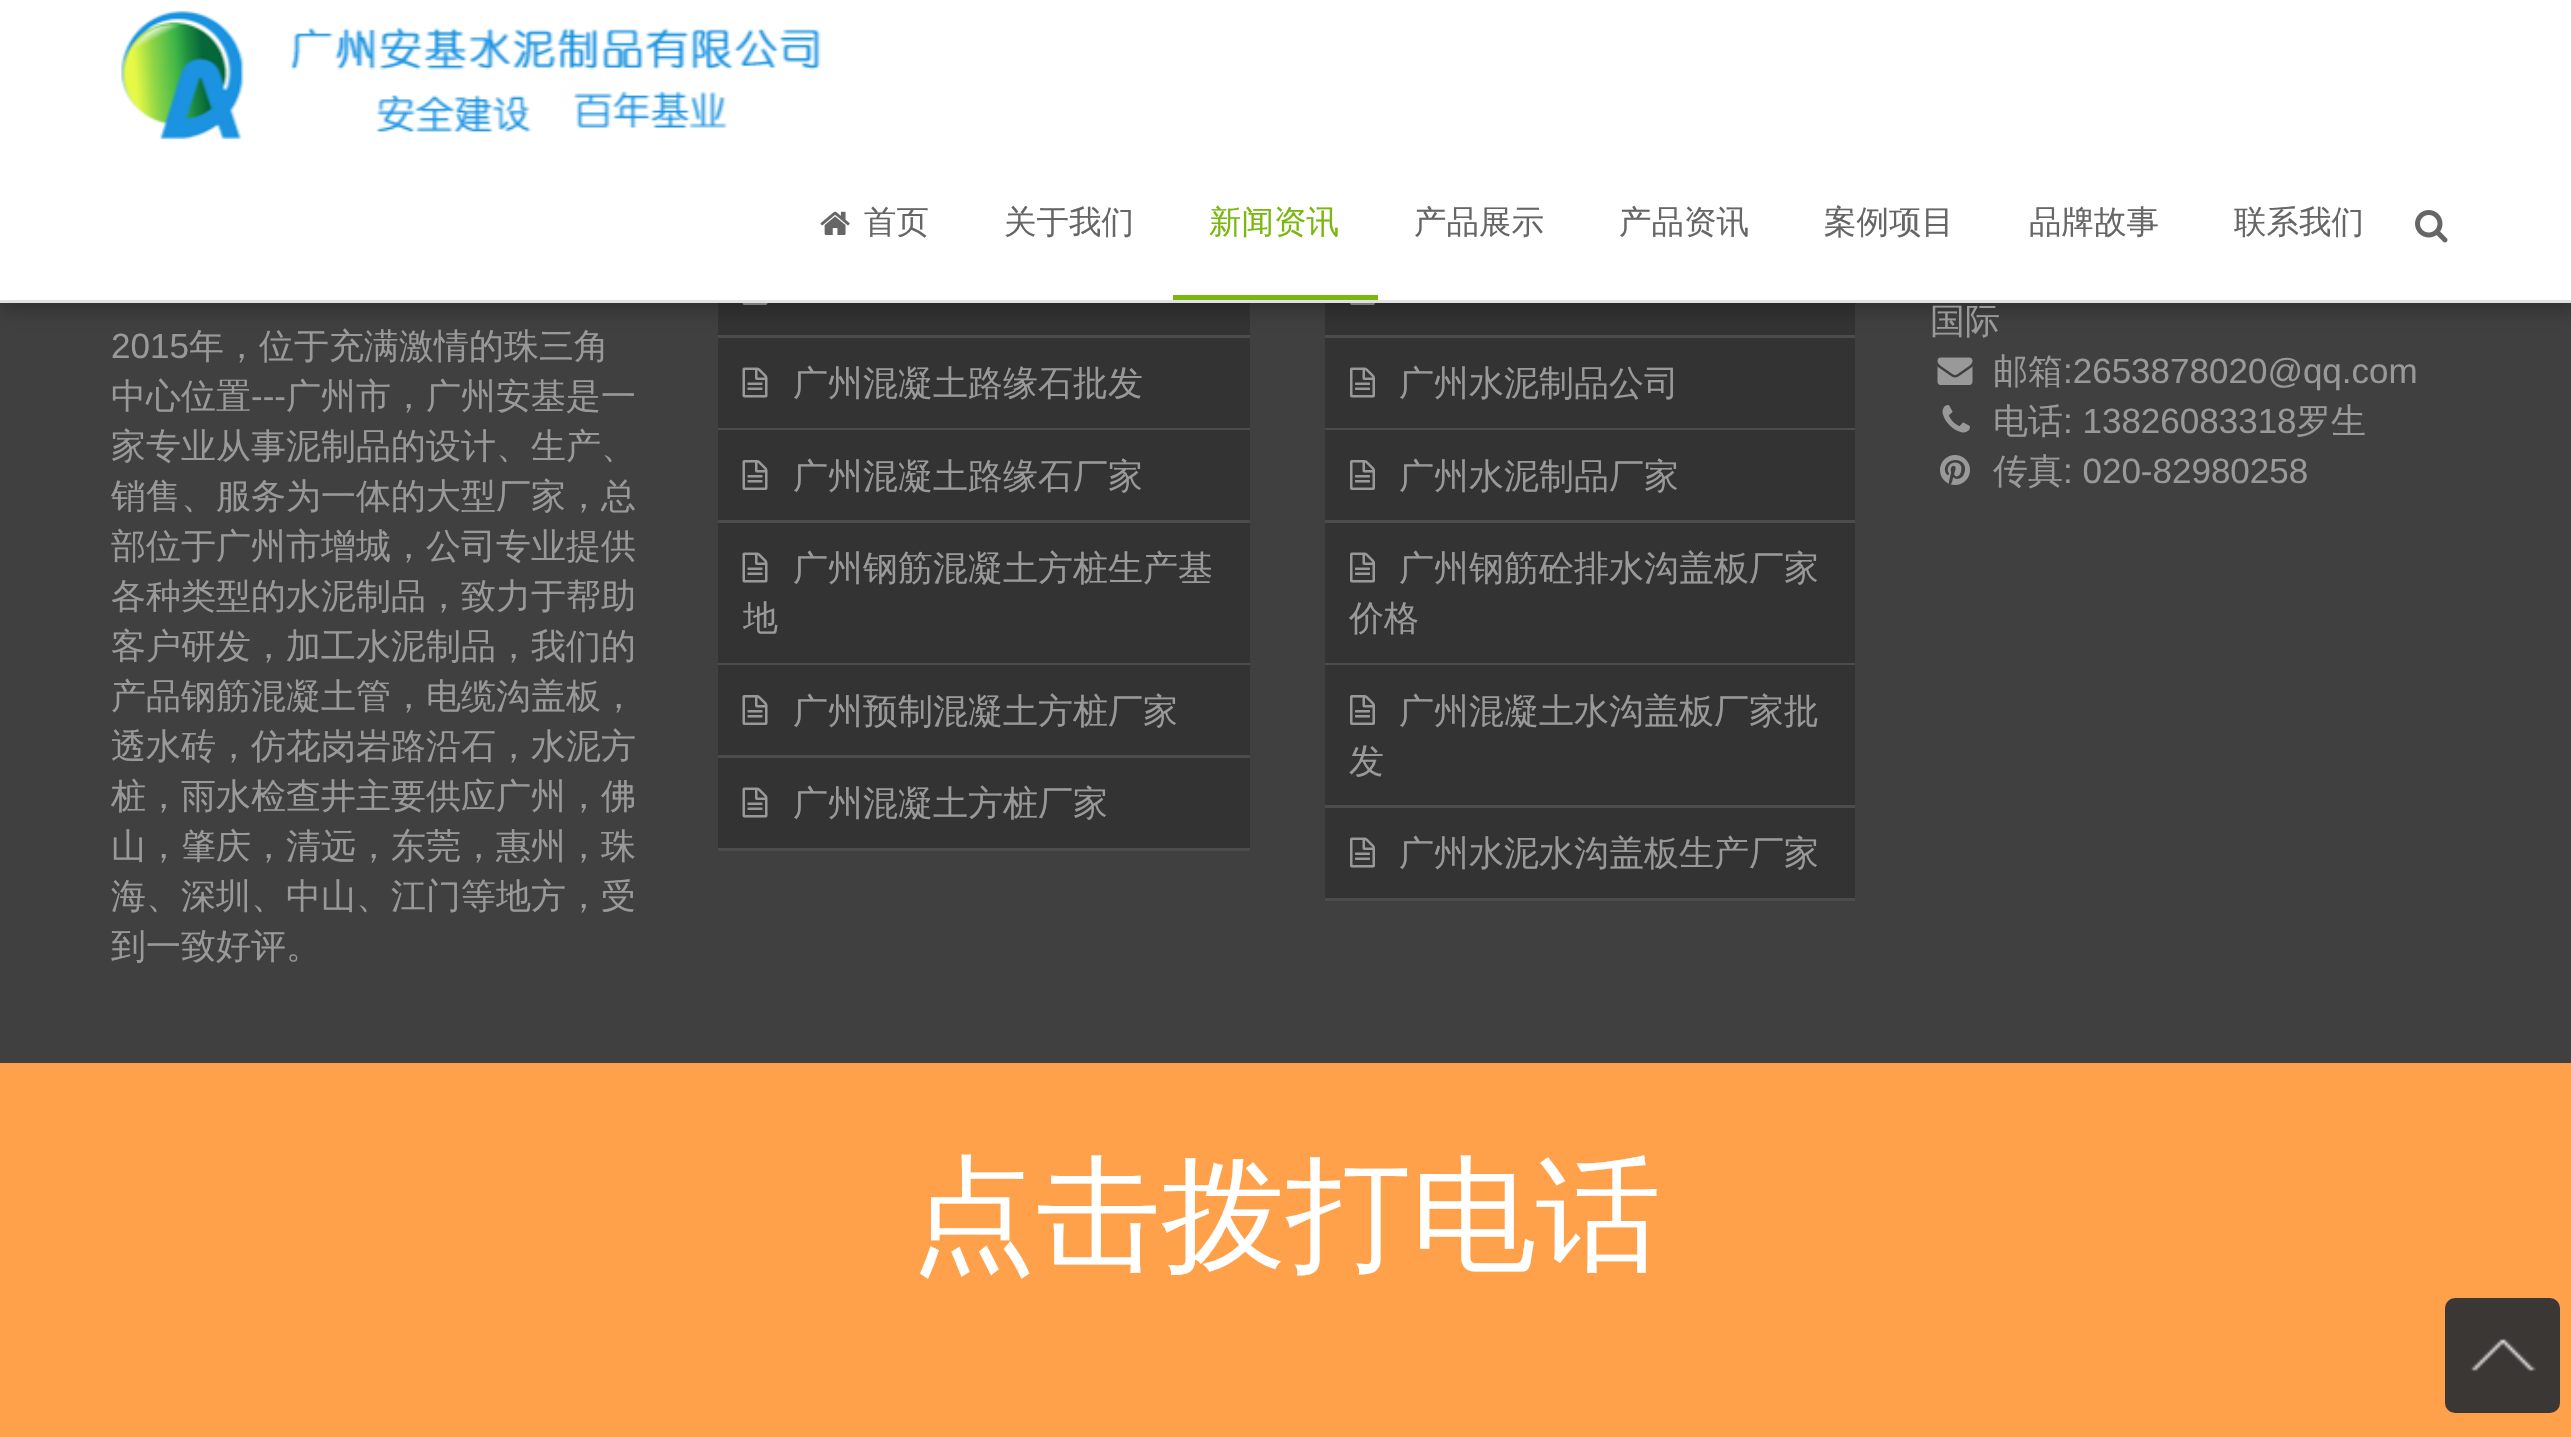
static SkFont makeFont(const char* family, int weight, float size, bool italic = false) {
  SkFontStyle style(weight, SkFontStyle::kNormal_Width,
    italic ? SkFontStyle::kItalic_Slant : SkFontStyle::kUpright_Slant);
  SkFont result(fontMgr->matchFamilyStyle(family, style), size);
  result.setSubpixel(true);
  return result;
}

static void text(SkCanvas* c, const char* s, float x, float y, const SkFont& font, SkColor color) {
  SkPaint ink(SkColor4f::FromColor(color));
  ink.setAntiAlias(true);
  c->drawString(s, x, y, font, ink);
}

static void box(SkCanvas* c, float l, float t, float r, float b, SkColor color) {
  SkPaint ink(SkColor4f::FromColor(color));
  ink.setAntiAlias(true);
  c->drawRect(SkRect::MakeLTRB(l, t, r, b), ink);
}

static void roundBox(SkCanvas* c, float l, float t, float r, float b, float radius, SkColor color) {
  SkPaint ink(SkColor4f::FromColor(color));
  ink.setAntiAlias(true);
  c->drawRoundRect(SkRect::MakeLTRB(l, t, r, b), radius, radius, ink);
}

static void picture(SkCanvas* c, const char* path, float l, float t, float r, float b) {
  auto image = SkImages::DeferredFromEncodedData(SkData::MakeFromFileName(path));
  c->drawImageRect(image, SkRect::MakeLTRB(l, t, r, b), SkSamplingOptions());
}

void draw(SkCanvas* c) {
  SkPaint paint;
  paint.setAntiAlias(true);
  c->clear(0xff404040);
  box(c, 718, 303, 1250, 335, 0xff333333);
  box(c, 718, 335, 1250, 338, 0xff4c4c4c);
  picture(c, "img_04.png", 742, 303, 768, 305);
  box(c, 718, 338, 1250, 428, 0xff333333);
  box(c, 1325, 303, 1855, 335, 0xff333333);
  box(c, 1325, 335, 1855, 338, 0xff4c4c4c);
  picture(c, "img_07.png", 1350, 303, 1375, 305);
  box(c, 1325, 338, 1855, 428, 0xff333333);
  paint.setColor(0x4d000000);
  paint.setMaskFilter(SkMaskFilter::MakeBlur(kNormal_SkBlurStyle, 10));
  c->drawRect(SkRect::MakeLTRB(0, 0, 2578, 308), paint);
  paint.setMaskFilter(nullptr);
  box(c, 0, 0, 2571, 300, 0xffffffff);
  box(c, 0, 300, 2571, 303, 0xffe0e0e0);
  picture(c, "img_01.png", 120, 10, 821, 140);
  picture(c, "img_02.png", 820, 211, 850, 235);
  SkFont face1 = makeFont("WenQuanYi Zen Hei", 500, 32.5f);
  text(c, "首页", 864, 233, face1, 0xff666666);
  text(c, "关于我们", 1004, 233, face1, 0xff666666);
  box(c, 1173, 295, 1378, 300, 0xff7ab80e);
  text(c, "新闻资讯", 1209, 233, face1, 0xff7ab80e);
  text(c, "产品展示", 1414, 233, face1, 0xff666666);
  text(c, "产品资讯", 1619, 233, face1, 0xff666666);
  text(c, "案例项目", 1824, 233, face1, 0xff666666);
  text(c, "品牌故事", 2029, 233, face1, 0xff666666);
  text(c, "联系我们", 2234, 233, face1, 0xff666666);
  picture(c, "img_03.png", 2415, 210, 2448, 243);
  SkFont face2 = makeFont("Liberation Sans", 400, 35);
  text(c, "2015", 111, 358, face2, 0xff999999);
  SkFont face3 = makeFont("WenQuanYi Zen Hei", 500, 35);
  text(c, "年，位于充满激情的珠三角", 189, 358, face3, 0xff999999);
  text(c, "中心位置", 111, 408, face3, 0xff999999);
  text(c, "---", 251, 408, face2, 0xff999999);
  text(c, "广州市，广州安基是一", 286, 408, face3, 0xff999999);
  text(c, "家专业从事泥制品的设计、生产、", 111, 458, face3, 0xff999999);
  text(c, "销售、服务为一体的大型厂家，总", 111, 508, face3, 0xff999999);
  text(c, "部位于广州市增城，公司专业提供", 111, 558, face3, 0xff999999);
  text(c, "各种类型的水泥制品，致力于帮助", 111, 608, face3, 0xff999999);
  text(c, "客户研发，加工水泥制品，我们的", 111, 658, face3, 0xff999999);
  text(c, "产品钢筋混凝土管，电缆沟盖板，", 111, 708, face3, 0xff999999);
  text(c, "透水砖，仿花岗岩路沿石，水泥方", 111, 758, face3, 0xff999999);
  text(c, "桩，雨水检查井主要供应广州，佛", 111, 808, face3, 0xff999999);
  text(c, "山，肇庆，清远，东莞，惠州，珠", 111, 858, face3, 0xff999999);
  text(c, "海、深圳、中山、江门等地方，受", 111, 908, face3, 0xff999999);
  text(c, "到一致好评。", 111, 958, face3, 0xff999999);
  box(c, 718, 428, 1250, 430, 0xff4c4c4c);
  picture(c, "img_05.png", 742, 367, 768, 398);
  text(c, "广州混凝土路缘石批发", 793, 395, face3, 0xff999999);
  box(c, 718, 430, 1250, 520, 0xff333333);
  box(c, 718, 520, 1250, 523, 0xff4c4c4c);
  picture(c, "img_06.png", 742, 460, 768, 490);
  text(c, "广州混凝土路缘石厂家", 793, 488, face3, 0xff999999);
  box(c, 718, 523, 1250, 663, 0xff333333);
  box(c, 718, 663, 1250, 665, 0xff4c4c4c);
  picture(c, "img_05.png", 742, 552, 768, 583);
  text(c, "广州钢筋混凝土方桩生产基", 793, 580, face3, 0xff999999);
  text(c, "地", 743, 630, face3, 0xff999999);
  box(c, 718, 665, 1250, 755, 0xff333333);
  box(c, 718, 755, 1250, 758, 0xff4c4c4c);
  picture(c, "img_06.png", 742, 695, 768, 725);
  text(c, "广州预制混凝土方桩厂家", 793, 723, face3, 0xff999999);
  box(c, 718, 758, 1250, 848, 0xff333333);
  box(c, 718, 848, 1250, 851, 0xff4c4c4c);
  picture(c, "img_05.png", 742, 787, 768, 818);
  text(c, "广州混凝土方桩厂家", 793, 815, face3, 0xff999999);
  box(c, 1325, 428, 1855, 430, 0xff4c4c4c);
  picture(c, "img_08.png", 1350, 367, 1375, 398);
  text(c, "广州水泥制品公司", 1399, 395, face3, 0xff999999);
  box(c, 1325, 430, 1855, 520, 0xff333333);
  box(c, 1325, 520, 1855, 523, 0xff4c4c4c);
  picture(c, "img_09.png", 1350, 460, 1375, 490);
  text(c, "广州水泥制品厂家", 1399, 488, face3, 0xff999999);
  box(c, 1325, 523, 1855, 663, 0xff333333);
  box(c, 1325, 663, 1855, 665, 0xff4c4c4c);
  picture(c, "img_08.png", 1350, 552, 1375, 583);
  text(c, "广州钢筋砼排水沟盖板厂家", 1399, 580, face3, 0xff999999);
  text(c, "价格", 1349, 630, face3, 0xff999999);
  box(c, 1325, 665, 1855, 805, 0xff333333);
  box(c, 1325, 805, 1855, 808, 0xff4c4c4c);
  picture(c, "img_09.png", 1350, 695, 1375, 725);
  text(c, "广州混凝土水沟盖板厂家批", 1399, 723, face3, 0xff999999);
  text(c, "发", 1349, 773, face3, 0xff999999);
  box(c, 1325, 808, 1855, 898, 0xff333333);
  box(c, 1325, 898, 1855, 901, 0xff4c4c4c);
  picture(c, "img_08.png", 1350, 837, 1375, 868);
  text(c, "广州水泥水沟盖板生产厂家", 1399, 865, face3, 0xff999999);
  text(c, "国际", 1930, 333, face3, 0xff999999);
  picture(c, "img_10.png", 1937, 357, 1973, 385);
  text(c, "邮箱", 1993, 383, face3, 0xff999999);
  text(c, ":2653878020@qq.com", 2063, 383, face2, 0xff999999);
  picture(c, "img_11.png", 1942, 405, 1970, 433);
  text(c, "电话", 1993, 433, face3, 0xff999999);
  text(c, ": 13826083318", 2063, 433, face2, 0xff999999);
  text(c, "罗生", 2296, 433, face3, 0xff999999);
  picture(c, "img_12.png", 1940, 455, 1970, 485);
  text(c, "传真", 1993, 483, face3, 0xff999999);
  text(c, ": 020-82980258", 2063, 483, face2, 0xff999999);
  box(c, 0, 1063, 2571, 1437, 0xffffa14a);
  SkFont face4 = makeFont("WenQuanYi Zen Hei", 500, 125);
  text(c, "点击拨打电话", 911, 1258, face4, 0xffffffff);
  roundBox(c, 2445, 1298, 2560, 1413, 10, 0xff3b3734);
  picture(c, "img_13.png", 2470, 1338, 2536, 1372);
}
